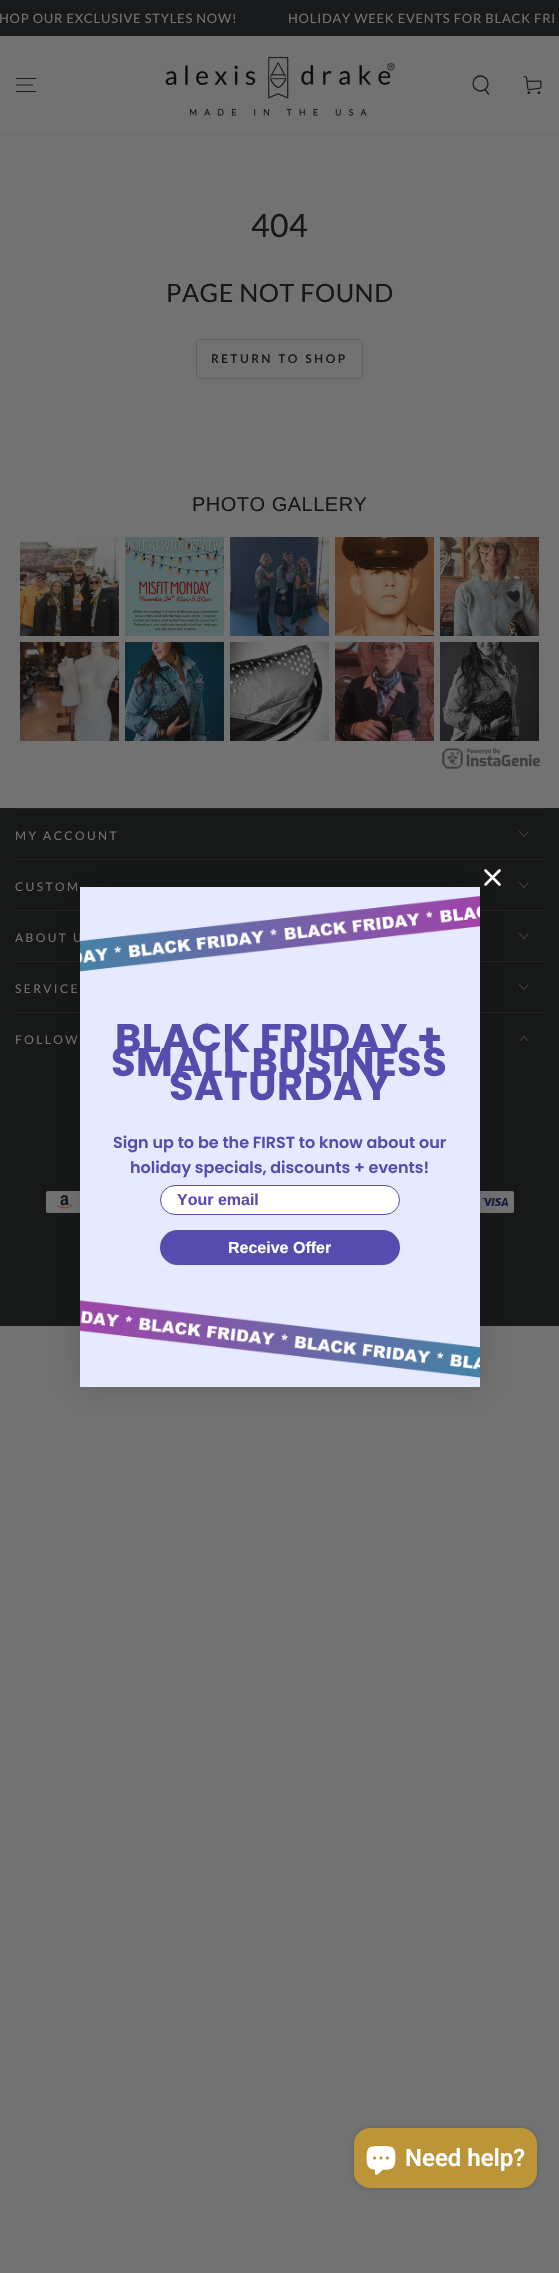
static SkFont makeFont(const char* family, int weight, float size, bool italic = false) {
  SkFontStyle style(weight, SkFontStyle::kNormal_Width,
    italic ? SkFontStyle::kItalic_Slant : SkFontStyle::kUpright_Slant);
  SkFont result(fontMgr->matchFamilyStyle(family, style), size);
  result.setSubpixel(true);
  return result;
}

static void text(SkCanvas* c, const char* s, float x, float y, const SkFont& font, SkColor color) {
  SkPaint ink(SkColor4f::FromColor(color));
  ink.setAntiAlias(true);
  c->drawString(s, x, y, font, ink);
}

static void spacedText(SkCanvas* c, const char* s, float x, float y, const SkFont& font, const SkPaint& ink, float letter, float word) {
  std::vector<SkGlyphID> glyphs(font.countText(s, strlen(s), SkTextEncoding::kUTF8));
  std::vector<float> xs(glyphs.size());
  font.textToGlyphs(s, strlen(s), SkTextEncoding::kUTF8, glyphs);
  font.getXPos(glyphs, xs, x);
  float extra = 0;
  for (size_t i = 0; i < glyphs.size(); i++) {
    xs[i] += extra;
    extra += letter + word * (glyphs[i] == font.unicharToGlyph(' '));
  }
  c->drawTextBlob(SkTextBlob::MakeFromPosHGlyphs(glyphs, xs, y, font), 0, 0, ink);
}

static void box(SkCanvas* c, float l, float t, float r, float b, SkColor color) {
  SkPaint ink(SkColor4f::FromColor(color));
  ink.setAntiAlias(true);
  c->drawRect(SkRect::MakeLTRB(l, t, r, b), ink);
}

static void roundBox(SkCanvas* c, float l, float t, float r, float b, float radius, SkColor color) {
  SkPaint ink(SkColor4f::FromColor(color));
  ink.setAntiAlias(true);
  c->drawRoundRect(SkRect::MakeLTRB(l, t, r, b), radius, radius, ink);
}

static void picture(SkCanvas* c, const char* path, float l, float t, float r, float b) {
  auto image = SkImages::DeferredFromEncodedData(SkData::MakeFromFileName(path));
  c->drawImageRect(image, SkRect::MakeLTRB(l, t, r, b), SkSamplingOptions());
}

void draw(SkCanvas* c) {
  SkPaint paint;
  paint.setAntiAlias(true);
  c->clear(0xff727272);
  box(c, 0, 0, 559, 36, 0xff191a1b);
  SkFont face1 = makeFont("Lato", 400, 13);
  paint.setColor(0xff727272);
  spacedText(c, "HOP OUR EXCLUSIVE STYLES NOW!", -1, 23, face1, paint, 0.75f, 0);
  spacedText(c, "HOLIDAY WEEK EVENTS FOR BLACK FRI", 288, 23, face1, paint, 0.75f, 0);
  box(c, 0, 134, 559, 135, 0xff6d6d6e);
  paint.setStyle(SkPaint::kStroke_Style);
  paint.setStrokeWidth(1.1f);
  paint.setColor(0xff1c1c1c);
  c->drawPath(SkPathBuilder().moveTo(16, 91.5f).lineTo(36, 91.5f).moveTo(16, 85).lineTo(33, 85).moveTo(16, 78.5f).lineTo(36, 78.5f).detach(), paint);
  picture(c, "img_01.png", 164, 56, 396, 117);
  paint.setStrokeWidth(1.3f);
  c->drawCircle(480.5f, 83.5f, 7.5f, paint);
  paint.setStrokeCap(SkPaint::kRound_Cap);
  c->drawPath(SkPathBuilder().moveTo(485, 89.5f).lineTo(488.5f, 94).detach(), paint);
  picture(c, "img_02.png", 523, 76, 542, 95);
  SkFont face2 = makeFont("Lato", 400, 32);
  paint.setStyle(SkPaint::kFill_Style);
  paint.setColor(0xff161716);
  spacedText(c, "404", 251, 237, face2, paint, 0.5f, 0);
  SkFont face3 = makeFont("Lato", 400, 25.25f);
  spacedText(c, "PAGE NOT FOUND", 166, 302, face3, paint, 0.5f, 0);
  paint.setStyle(SkPaint::kStroke_Style);
  paint.setStrokeWidth(1);
  paint.setStrokeCap(SkPaint::kButt_Cap);
  paint.setColor(0xff606163);
  c->drawRoundRect(SkRect::MakeLTRB(196.5f, 339.5f, 362.5f, 378.5f), 3.5f, 3.5f, paint);
  SkFont face4 = makeFont("Lato", 600, 12);
  paint.setStyle(SkPaint::kFill_Style);
  paint.setColor(0xff161716);
  spacedText(c, "RETURN TO SHOP", 211, 363, face4, paint, 2.4f, 0);
  SkFont face5 = makeFont("Liberation Sans", 400, 20);
  spacedText(c, "PHOTO GALLERY", 192, 511, face5, paint, 0.5f, 0);
  picture(c, "img_03.png", 20, 537, 119, 636);
  picture(c, "img_04.png", 125, 537, 224, 636);
  picture(c, "img_05.png", 230, 537, 329, 636);
  picture(c, "img_06.png", 335, 537, 434, 636);
  picture(c, "img_07.png", 440, 537, 539, 636);
  picture(c, "img_08.png", 20, 642, 119, 741);
  picture(c, "img_09.png", 125, 642, 224, 741);
  picture(c, "img_10.png", 230, 642, 329, 741);
  picture(c, "img_11.png", 335, 642, 434, 741);
  picture(c, "img_12.png", 440, 642, 539, 741);
  picture(c, "img_13.png", 442, 748, 540, 769);
  box(c, 0, 808, 559, 1326, 0xff171818);
  box(c, 15, 808, 544, 809, 0xff242424);
  box(c, 15, 859, 544, 860, 0xff242424);
  SkFont face6 = makeFont("Lato", 400, 12);
  paint.setColor(0xff727272);
  spacedText(c, "MY ACCOUNT", 15, 840, face6, paint, 2.4f, 0);
  picture(c, "img_14.png", 519, 831, 529, 837);
  box(c, 15, 910, 544, 911, 0xff242424);
  spacedText(c, "CUSTOM", 15, 891, face6, paint, 2.4f, 0);
  picture(c, "img_14.png", 519, 882, 529, 888);
  box(c, 15, 961, 544, 962, 0xff242424);
  spacedText(c, "ABOUT U", 15, 942, face6, paint, 2.4f, 0);
  picture(c, "img_14.png", 519, 933, 529, 939);
  box(c, 15, 1012, 544, 1013, 0xff242424);
  spacedText(c, "SERVICE", 15, 993, face6, paint, 2.4f, 0);
  picture(c, "img_14.png", 519, 984, 529, 990);
  spacedText(c, "FOLLOW", 15, 1044, face6, paint, 2.4f, 0);
  picture(c, "img_15.png", 519, 1036, 529, 1041);
  picture(c, "img_16.png", 46, 1191, 80, 1213);
  picture(c, "img_17.png", 480, 1191, 514, 1213);
  paint.setColor(0x26000000);
  paint.setMaskFilter(SkMaskFilter::MakeBlur(kNormal_SkBlurStyle, 15));
  c->drawRect(SkRect::MakeLTRB(80, 887, 480, 1387), paint);
  paint.setMaskFilter(nullptr);
  paint.setStyle(SkPaint::kStroke_Style);
  paint.setStrokeWidth(2.6f);
  paint.setStrokeCap(SkPaint::kRound_Cap);
  paint.setStrokeJoin(SkPaint::kRound_Join);
  paint.setColor(0xffffffff);
  c->drawPath(SkPathBuilder().moveTo(485.5f, 870.5f).lineTo(499.5f, 884.5f).moveTo(485.5f, 884.5f).lineTo(499.5f, 870.5f).close().detach(), paint);
  box(c, 80, 887, 480, 1387, 0xffe7eaff);
  picture(c, "img_18.png", 80, 895, 480, 1378);
  SkFont face7 = makeFont("Poppins", 700, 40);
  paint.setStyle(SkPaint::kFill_Style);
  paint.setColor(0xff564cae);
  spacedText(c, "BLACK FRIDAY +", 115, 1052, face7, paint, 0.5f, 0);
  spacedText(c, "SMALL BUSINESS", 111, 1076, face7, paint, 0.5f, 0);
  spacedText(c, "SATURDAY", 169, 1100, face7, paint, 0.5f, 0);
  SkFont face8 = makeFont("Poppins", 600, 16);
  text(c, "Sign up to be the FIRST to know about our", 113, 1148, face8, 0xff564cae);
  text(c, "holiday specials, discounts + events!", 130, 1173, face8, 0xff564cae);
  paint.setColor(0xffffffff);
  c->drawRoundRect(SkRect::MakeLTRB(160.5f, 1185.5f, 399.5f, 1214.5f), 14.5f, 14.5f, paint);
  paint.setStyle(SkPaint::kStroke_Style);
  paint.setStrokeWidth(1);
  paint.setStrokeCap(SkPaint::kButt_Cap);
  paint.setStrokeJoin(SkPaint::kMiter_Join);
  paint.setColor(0xff564cae);
  c->drawRoundRect(SkRect::MakeLTRB(160.5f, 1185.5f, 399.5f, 1214.5f), 14.5f, 14.5f, paint);
  SkFont face9 = makeFont("Liberation Sans", 700, 16);
  text(c, "Your email", 177, 1205, face9, 0xff564cae);
  roundBox(c, 160, 1230, 400, 1265, 17.5f, 0xff564cae);
  text(c, "Receive Offer", 228, 1253, face9, 0xffffffff);
  paint.setStyle(SkPaint::kFill_Style);
  paint.setColor(0x26000000);
  paint.setMaskFilter(SkMaskFilter::MakeBlur(kNormal_SkBlurStyle, 2.5f));
  c->drawRoundRect(SkRect::MakeLTRB(354, 2128, 537, 2188), 16, 16, paint);
  paint.setMaskFilter(nullptr);
  roundBox(c, 354, 2128, 537, 2188, 16, 0xffbc9538);
  picture(c, "img_19.png", 366, 2146, 396, 2175);
  SkFont face10 = makeFont("Roboto", 600, 24);
  text(c, "Need help?", 405, 2166, face10, 0xffffffff);
}
